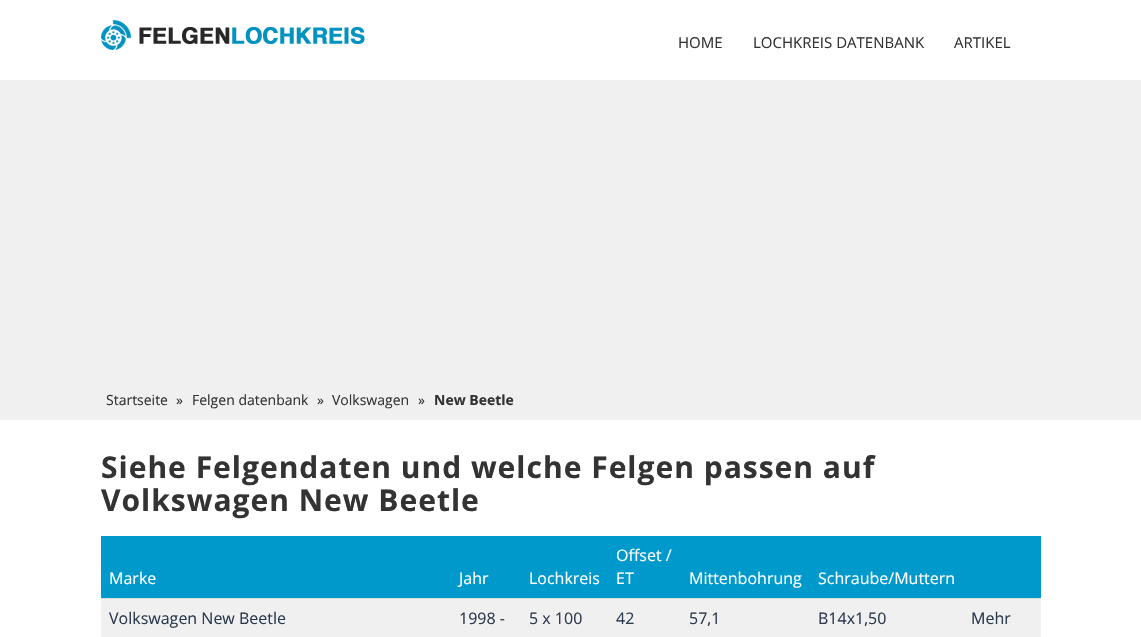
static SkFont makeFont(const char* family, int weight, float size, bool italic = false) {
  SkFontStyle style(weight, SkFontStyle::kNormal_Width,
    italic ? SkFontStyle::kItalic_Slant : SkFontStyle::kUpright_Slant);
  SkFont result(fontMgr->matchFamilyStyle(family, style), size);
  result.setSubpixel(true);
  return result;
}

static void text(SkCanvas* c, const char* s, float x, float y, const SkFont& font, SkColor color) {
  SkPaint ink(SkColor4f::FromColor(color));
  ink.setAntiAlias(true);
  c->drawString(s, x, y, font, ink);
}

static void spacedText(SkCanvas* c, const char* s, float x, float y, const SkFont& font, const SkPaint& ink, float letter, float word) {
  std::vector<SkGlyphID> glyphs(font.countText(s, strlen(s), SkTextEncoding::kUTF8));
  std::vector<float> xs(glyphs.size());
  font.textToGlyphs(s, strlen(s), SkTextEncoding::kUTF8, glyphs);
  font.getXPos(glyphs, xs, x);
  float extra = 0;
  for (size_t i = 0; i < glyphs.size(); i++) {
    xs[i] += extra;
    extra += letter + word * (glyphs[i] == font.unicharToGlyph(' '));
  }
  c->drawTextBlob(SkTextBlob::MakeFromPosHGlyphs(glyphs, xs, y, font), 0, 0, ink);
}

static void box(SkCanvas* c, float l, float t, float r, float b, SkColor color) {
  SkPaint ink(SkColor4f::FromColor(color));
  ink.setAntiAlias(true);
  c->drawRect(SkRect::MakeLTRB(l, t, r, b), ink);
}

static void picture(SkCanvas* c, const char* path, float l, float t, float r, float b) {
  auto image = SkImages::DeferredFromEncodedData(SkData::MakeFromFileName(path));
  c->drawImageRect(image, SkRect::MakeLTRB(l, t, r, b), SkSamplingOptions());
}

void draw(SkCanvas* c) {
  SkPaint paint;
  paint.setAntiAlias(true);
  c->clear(0xffffffff);
  picture(c, "img_01.png", 101, 20, 365, 50);
  SkFont face1 = makeFont("Open Sans", 400, 15);
  text(c, "HOME", 678, 48, face1, 0xff333333);
  text(c, "LOCHKREIS DATENBANK", 753, 48, face1, 0xff333333);
  text(c, "ARTIKEL", 954, 48, face1, 0xff333333);
  box(c, 0, 80, 1141, 420, 0xfff1f0f0);
  SkFont face2 = makeFont("Open Sans", 400, 14);
  text(c, "Startseite", 106, 405, face2, 0xff333333);
  text(c, "»", 176, 405, face2, 0xff333333);
  text(c, "Felgen datenbank", 192, 405, face2, 0xff333333);
  text(c, "»", 317, 405, face2, 0xff333333);
  text(c, "Volkswagen", 332, 405, face2, 0xff333333);
  text(c, "»", 418, 405, face2, 0xff333333);
  SkFont face3 = makeFont("Open Sans", 700, 14);
  text(c, "New Beetle", 434, 405, face3, 0xff333333);
  SkFont face4 = makeFont("Open Sans", 700, 30);
  paint.setColor(0xff333333);
  spacedText(c, "Siehe Felgendaten und welche Felgen passen auf", 101, 478, face4, paint, 1, 0);
  spacedText(c, "Volkswagen New Beetle", 101, 511, face4, paint, 1, 0);
  box(c, 101, 536, 1041, 598, 0xff0099cc);
  SkFont face5 = makeFont("Open Sans", 400, 16);
  text(c, "Marke", 109, 584, face5, 0xffffffff);
  text(c, "Jahr", 459, 584, face5, 0xffffffff);
  text(c, "Lochkreis", 529, 584, face5, 0xffffffff);
  text(c, "Offset /", 616, 561, face5, 0xffffffff);
  text(c, "ET", 616, 584, face5, 0xffffffff);
  text(c, "Mittenbohrung", 689, 584, face5, 0xffffffff);
  text(c, "Schraube/Muttern", 818, 584, face5, 0xffffffff);
  box(c, 101, 599, 1041, 637, 0xfff1f0f0);
  text(c, "Volkswagen New Beetle", 109, 624, face5, 0xff2a394c);
  text(c, "1998 -", 459, 624, face5, 0xff2a394c);
  text(c, "5 x 100", 529, 624, face5, 0xff2a394c);
  text(c, "42", 616, 624, face5, 0xff2a394c);
  text(c, "57,1", 689, 624, face5, 0xff2a394c);
  text(c, "B14x1,50", 818, 624, face5, 0xff2a394c);
  box(c, 101, 598, 1041, 599, 0xffdddddd);
  text(c, "Mehr", 971, 624, face5, 0xff2a394c);
}
